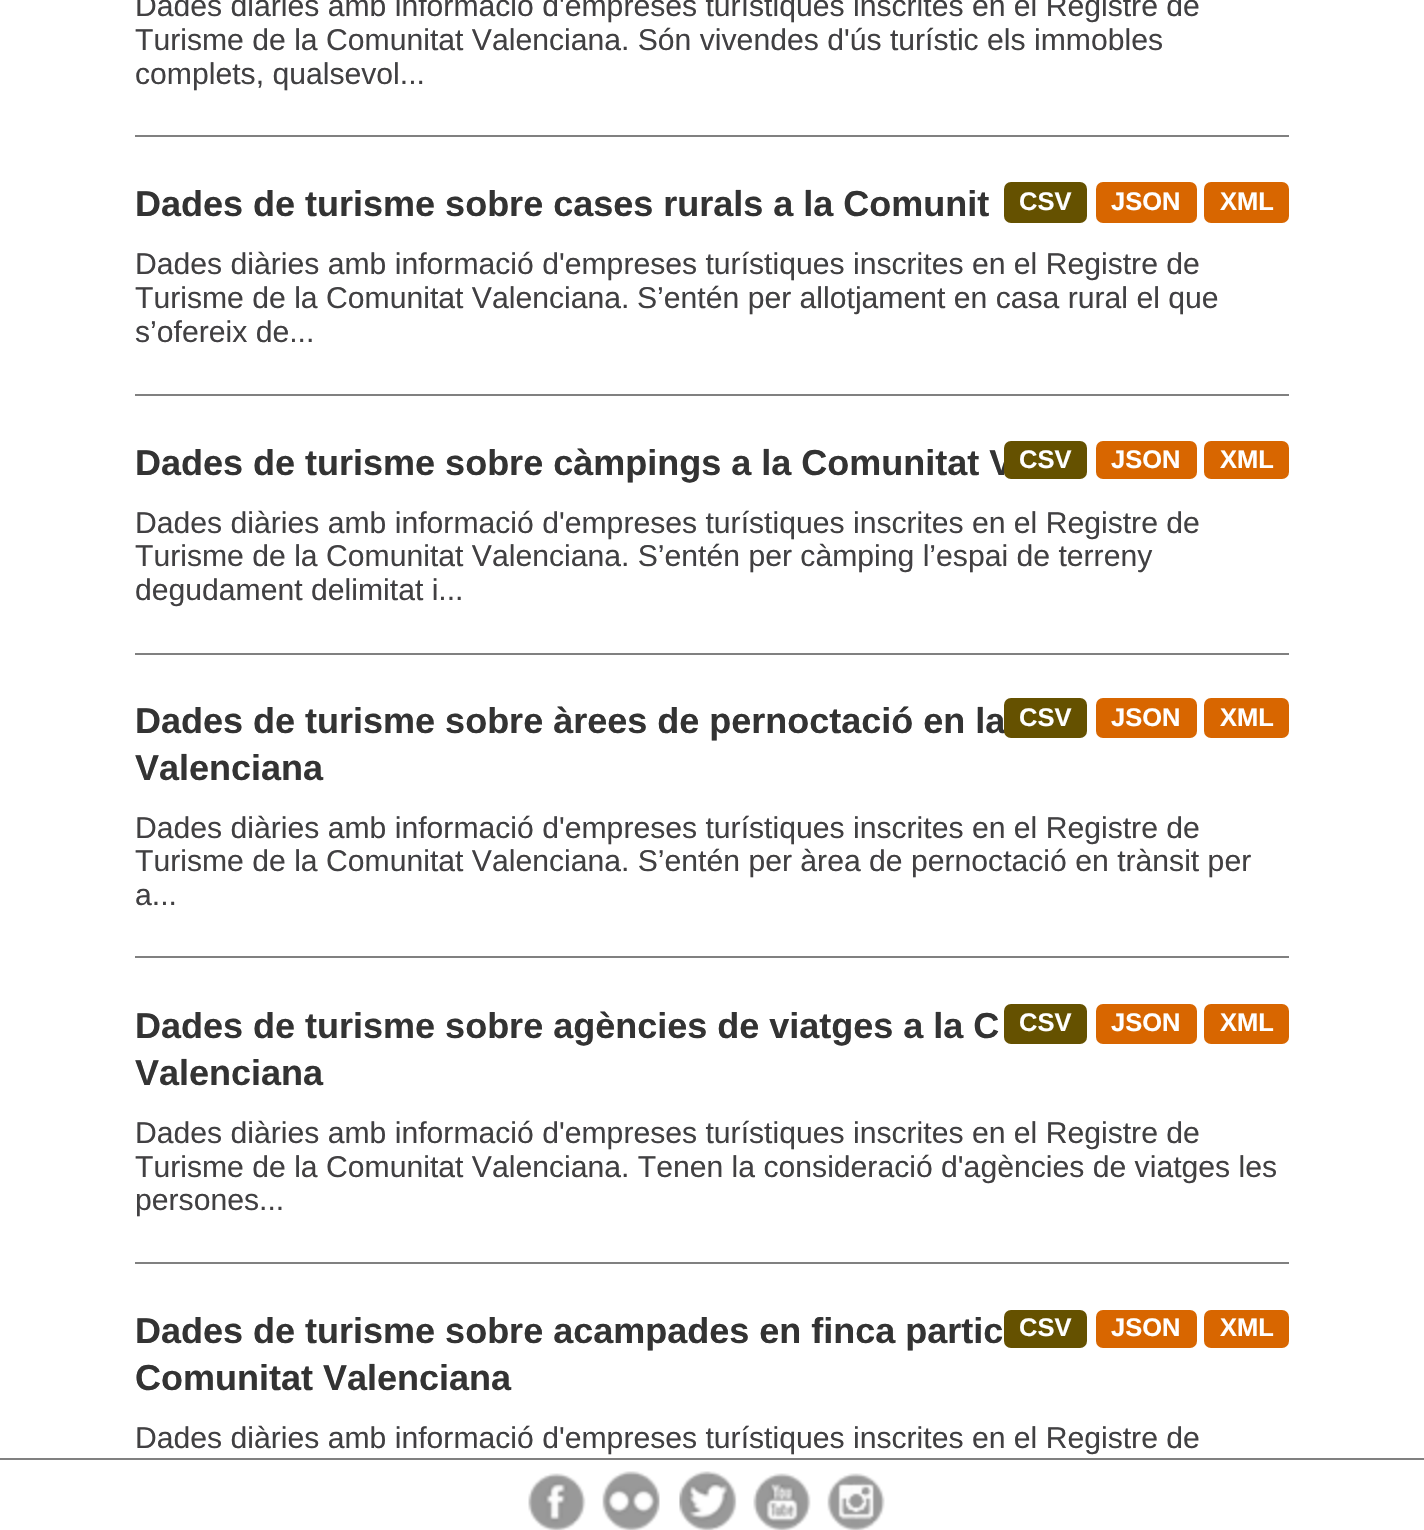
static SkFont makeFont(const char* family, int weight, float size, bool italic = false) {
  SkFontStyle style(weight, SkFontStyle::kNormal_Width,
    italic ? SkFontStyle::kItalic_Slant : SkFontStyle::kUpright_Slant);
  SkFont result(fontMgr->matchFamilyStyle(family, style), size);
  result.setSubpixel(true);
  return result;
}

static void text(SkCanvas* c, const char* s, float x, float y, const SkFont& font, SkColor color) {
  SkPaint ink(SkColor4f::FromColor(color));
  ink.setAntiAlias(true);
  c->drawString(s, x, y, font, ink);
}

static void box(SkCanvas* c, float l, float t, float r, float b, SkColor color) {
  SkPaint ink(SkColor4f::FromColor(color));
  ink.setAntiAlias(true);
  c->drawRect(SkRect::MakeLTRB(l, t, r, b), ink);
}

static void roundBox(SkCanvas* c, float l, float t, float r, float b, float radius, SkColor color) {
  SkPaint ink(SkColor4f::FromColor(color));
  ink.setAntiAlias(true);
  c->drawRoundRect(SkRect::MakeLTRB(l, t, r, b), radius, radius, ink);
}

static void picture(SkCanvas* c, const char* path, float l, float t, float r, float b) {
  auto image = SkImages::DeferredFromEncodedData(SkData::MakeFromFileName(path));
  c->drawImageRect(image, SkRect::MakeLTRB(l, t, r, b), SkSamplingOptions());
}

void draw(SkCanvas* c) {
  SkPaint paint;
  paint.setAntiAlias(true);
  c->clear(0xffffffff);
  box(c, 135, 135, 1289, 137, 0xff808080);
  SkFont face1 = makeFont("Liberation Sans", 400, 30.15f);
  text(c, "Dades diàries amb informació d'empreses turístiques inscrites en el Registre de", 135, 16, face1, 0xff414042);
  text(c, "Turisme de la Comunitat Valenciana. Són vivendes d'ús turístic els immobles", 135, 50, face1, 0xff414042);
  text(c, "complets, qualsevol...", 135, 84, face1, 0xff414042);
  box(c, 135, 394, 1289, 396, 0xff808080);
  SkFont face2 = makeFont("Liberation Sans", 700, 36);
  text(c, "Dades de turisme sobre cases rurals a la Comunit", 135, 216, face2, 0xff333333);
  roundBox(c, 1004, 182, 1087, 223, 7, 0xff655100);
  SkFont face3 = makeFont("Liberation Sans", 700, 25.5f);
  text(c, "CSV", 1019, 210, face3, 0xffffffff);
  roundBox(c, 1096, 182, 1197, 223, 7, 0xffd86600);
  text(c, "JSON", 1111, 210, face3, 0xffffffff);
  roundBox(c, 1204, 182, 1289, 223, 7, 0xffd86600);
  text(c, "XML", 1220, 210, face3, 0xffffffff);
  text(c, "Dades diàries amb informació d'empreses turístiques inscrites en el Registre de", 135, 274, face1, 0xff414042);
  text(c, "Turisme de la Comunitat Valenciana.", 135, 308, face1, 0xff414042);
  text(c, "S’entén per allotjament en casa rural el que", 637, 308, face1, 0xff414042);
  text(c, "s’ofereix de...", 135, 342, face1, 0xff414042);
  box(c, 135, 653, 1289, 655, 0xff808080);
  text(c, "Dades de turisme sobre càmpings a la Comunitat V", 135, 475, face2, 0xff333333);
  roundBox(c, 1004, 441, 1087, 479, 7, 0xff655100);
  text(c, "CSV", 1019, 468, face3, 0xffffffff);
  roundBox(c, 1096, 441, 1197, 479, 7, 0xffd86600);
  text(c, "JSON", 1111, 468, face3, 0xffffffff);
  roundBox(c, 1204, 441, 1289, 479, 7, 0xffd86600);
  text(c, "XML", 1220, 468, face3, 0xffffffff);
  text(c, "Dades diàries amb informació d'empreses turístiques inscrites en el Registre de", 135, 533, face1, 0xff414042);
  text(c, "Turisme de la Comunitat Valenciana. S’entén per càmping l’espai de terreny", 135, 566, face1, 0xff414042);
  text(c, "degudament delimitat i...", 135, 600, face1, 0xff414042);
  box(c, 135, 956, 1289, 958, 0xff808080);
  text(c, "Dades de turisme sobre àrees de pernoctació en la", 135, 733, face2, 0xff333333);
  text(c, "Valenciana", 135, 780, face2, 0xff333333);
  roundBox(c, 1004, 698, 1087, 738, 7, 0xff655100);
  text(c, "CSV", 1019, 726, face3, 0xffffffff);
  roundBox(c, 1096, 698, 1197, 738, 7, 0xffd86600);
  text(c, "JSON", 1111, 726, face3, 0xffffffff);
  roundBox(c, 1204, 698, 1289, 738, 7, 0xffd86600);
  text(c, "XML", 1220, 726, face3, 0xffffffff);
  text(c, "Dades diàries amb informació d'empreses turístiques inscrites en el Registre de", 135, 838, face1, 0xff414042);
  text(c, "Turisme de la Comunitat Valenciana. S’entén per àrea de pernoctació en trànsit per", 135, 871, face1, 0xff414042);
  text(c, "a...", 135, 905, face1, 0xff414042);
  box(c, 135, 1262, 1289, 1264, 0xff808080);
  text(c, "Dades de turisme sobre agències de viatges a la C", 135, 1038, face2, 0xff333333);
  text(c, "Valenciana", 135, 1085, face2, 0xff333333);
  roundBox(c, 1004, 1004, 1087, 1044, 7, 0xff655100);
  text(c, "CSV", 1019, 1031, face3, 0xffffffff);
  roundBox(c, 1096, 1004, 1197, 1044, 7, 0xffd86600);
  text(c, "JSON", 1111, 1031, face3, 0xffffffff);
  roundBox(c, 1204, 1004, 1289, 1044, 7, 0xffd86600);
  text(c, "XML", 1220, 1031, face3, 0xffffffff);
  text(c, "Dades diàries amb informació d'empreses turístiques inscrites en el Registre de", 135, 1143, face1, 0xff414042);
  text(c, "Turisme de la Comunitat Valenciana. Tenen la consideració d'agències de viatges les", 135, 1177, face1, 0xff414042);
  text(c, "persones...", 135, 1210, face1, 0xff414042);
  text(c, "Dades de turisme sobre acampades en finca partic", 135, 1343, face2, 0xff333333);
  text(c, "Comunitat Valenciana", 135, 1390, face2, 0xff333333);
  roundBox(c, 1004, 1310, 1087, 1348, 7, 0xff655100);
  text(c, "CSV", 1019, 1336, face3, 0xffffffff);
  roundBox(c, 1096, 1310, 1197, 1348, 7, 0xffd86600);
  text(c, "JSON", 1111, 1336, face3, 0xffffffff);
  roundBox(c, 1204, 1310, 1289, 1348, 7, 0xffd86600);
  text(c, "XML", 1220, 1336, face3, 0xffffffff);
  text(c, "Dades diàries amb informació d'empreses turístiques inscrites en el Registre de", 135, 1448, face1, 0xff414042);
  box(c, 0, 1458, 1424, 1460, 0xff808080);
  picture(c, "img_01.png", 528, 1473, 586, 1530);
  picture(c, "img_02.png", 602, 1471, 660, 1530);
  picture(c, "img_03.png", 679, 1471, 737, 1530);
  picture(c, "img_04.png", 753, 1473, 811, 1530);
  picture(c, "img_05.png", 827, 1473, 885, 1530);
}
